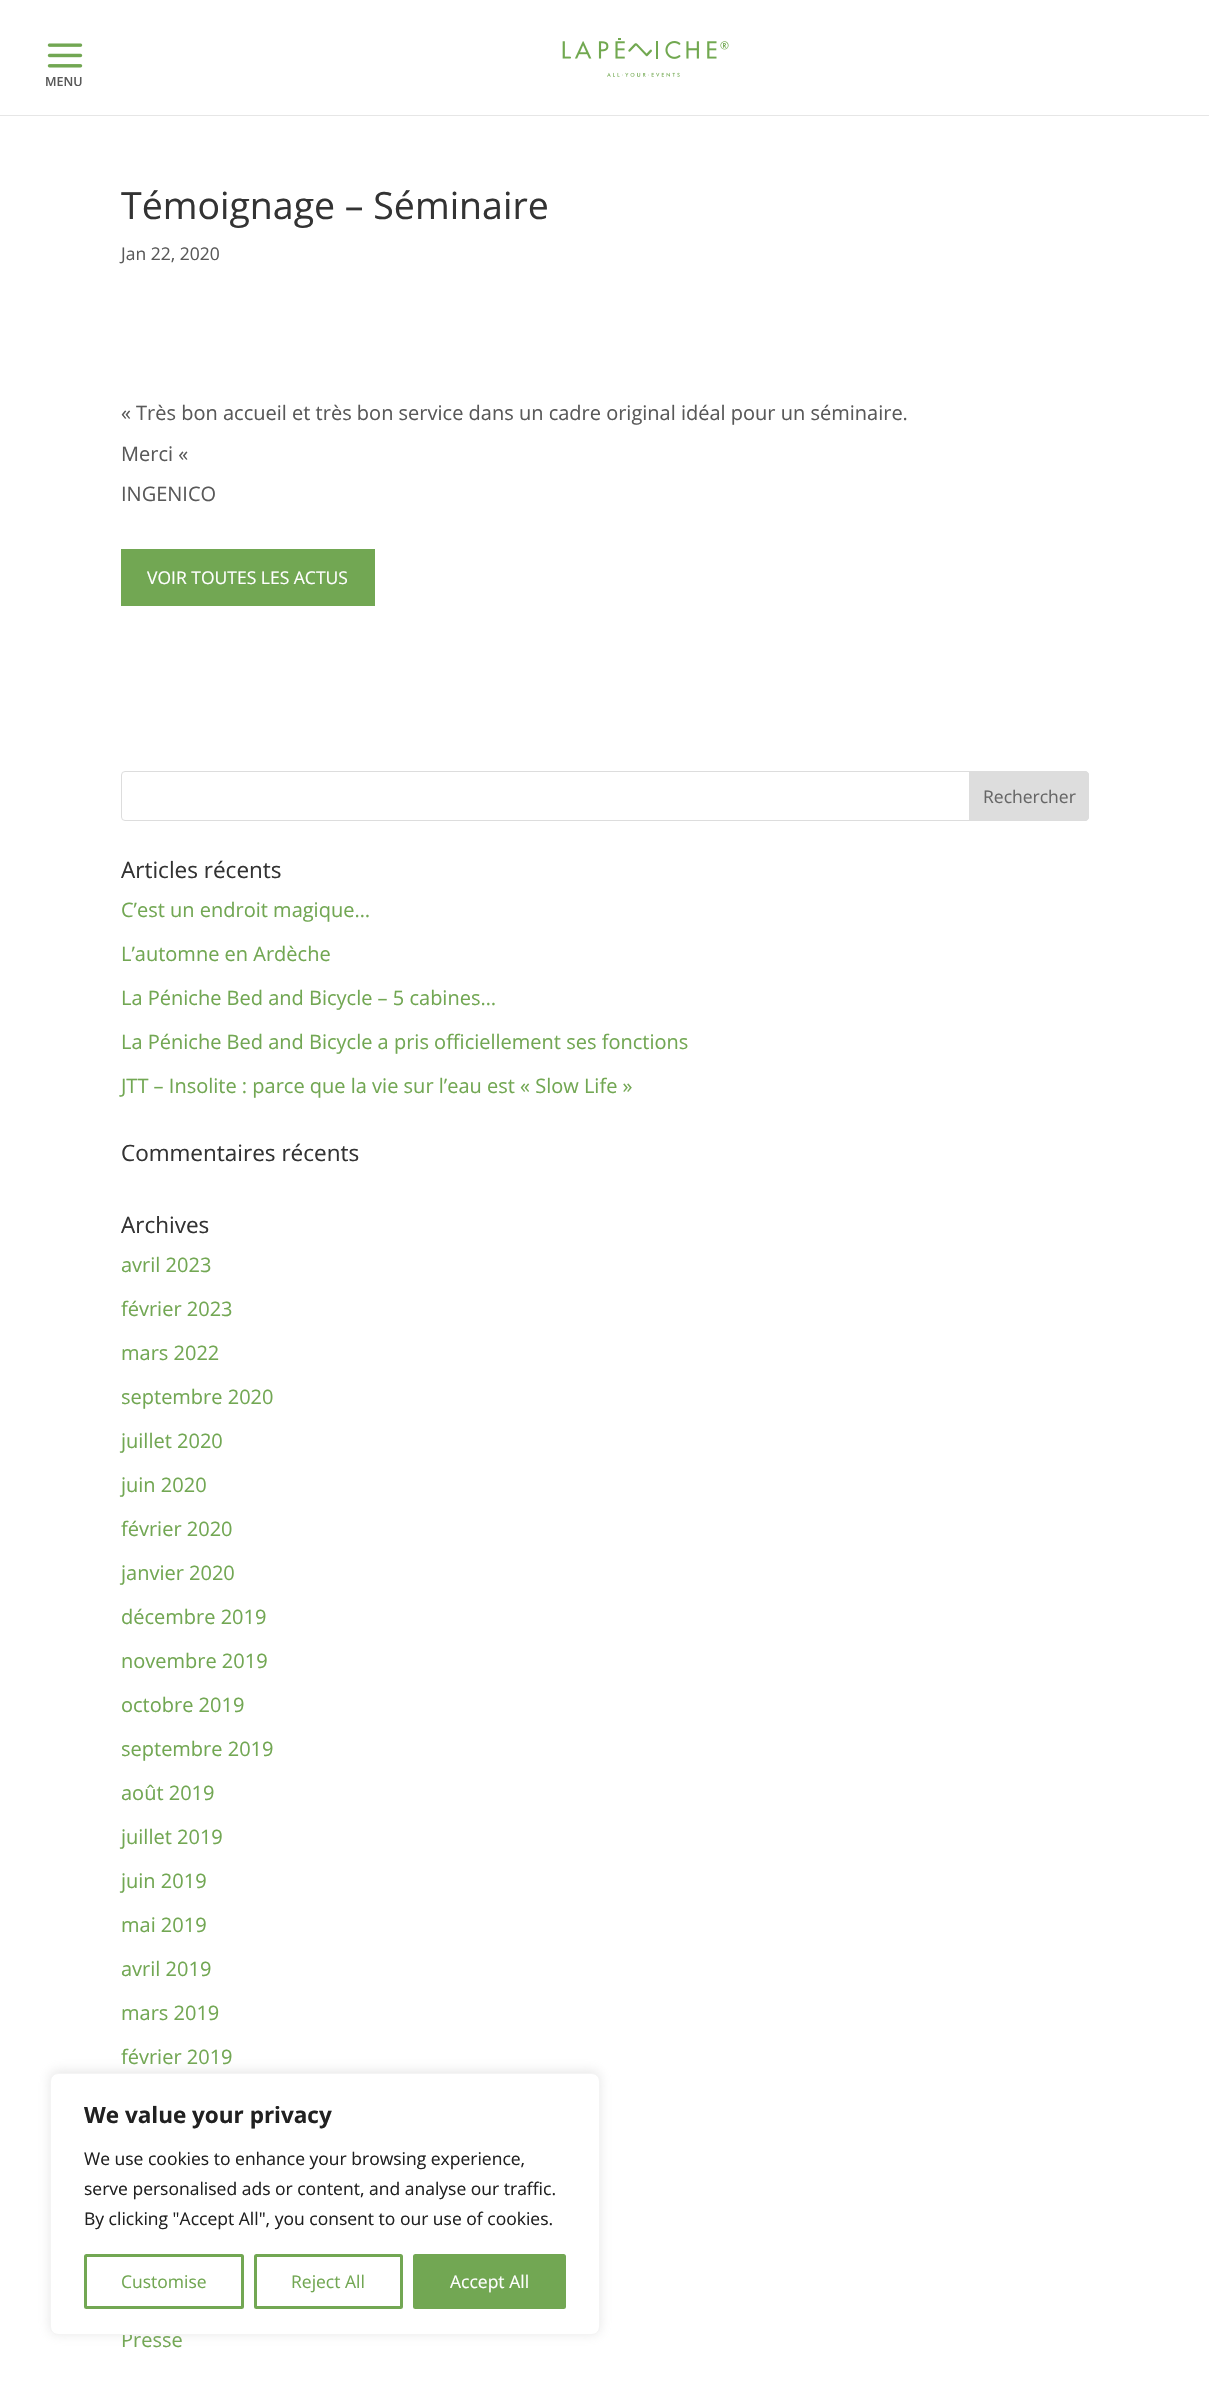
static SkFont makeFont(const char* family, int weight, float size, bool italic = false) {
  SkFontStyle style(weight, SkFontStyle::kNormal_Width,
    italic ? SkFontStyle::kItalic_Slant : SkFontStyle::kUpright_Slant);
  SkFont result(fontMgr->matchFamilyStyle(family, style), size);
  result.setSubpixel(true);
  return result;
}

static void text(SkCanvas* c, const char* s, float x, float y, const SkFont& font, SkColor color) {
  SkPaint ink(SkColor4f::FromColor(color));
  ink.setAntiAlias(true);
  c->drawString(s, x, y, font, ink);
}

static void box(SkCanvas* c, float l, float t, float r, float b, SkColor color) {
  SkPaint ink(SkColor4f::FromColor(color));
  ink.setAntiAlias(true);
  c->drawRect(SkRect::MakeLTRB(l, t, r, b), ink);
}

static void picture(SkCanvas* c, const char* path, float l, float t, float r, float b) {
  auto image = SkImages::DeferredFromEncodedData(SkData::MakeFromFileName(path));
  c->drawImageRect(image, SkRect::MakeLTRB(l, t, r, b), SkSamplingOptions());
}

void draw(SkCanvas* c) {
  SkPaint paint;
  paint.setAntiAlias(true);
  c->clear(0xffffffff);
  box(c, 0, 115, 1209, 116, 0xffe6e6e6);
  picture(c, "img_01.png", 562, 38, 729, 77);
  picture(c, "img_02.png", 47, 43, 83, 68);
  SkFont face1 = makeFont("Open Sans", 600, 12.5f);
  text(c, "MENU", 45, 86, face1, 0xff595959);
  SkFont face2 = makeFont("Open Sans", 400, 37.5f);
  text(c, "Témoignage – Séminaire", 121, 219, face2, 0xff333333);
  SkFont face3 = makeFont("Open Sans", 400, 17.5f);
  text(c, "Jan 22, 2020", 121, 260, face3, 0xff595959);
  SkFont face4 = makeFont("Open Sans", 400, 20);
  text(c, "« Très bon accueil et très bon service dans un cadre original idéal pour un séminaire.", 121, 420, face4, 0xff595959);
  text(c, "Merci «", 121, 461, face4, 0xff595959);
  text(c, "INGENICO", 121, 501, face4, 0xff595959);
  box(c, 121, 549, 375, 606, 0xff72a753);
  text(c, "VOIR TOUTES LES ACTUS", 147, 584, face3, 0xffffffff);
  paint.setStyle(SkPaint::kStroke_Style);
  paint.setStrokeWidth(1);
  paint.setColor(0xffdddddd);
  c->drawRoundRect(SkRect::MakeLTRB(121.5f, 771.5f, 1088.5f, 820.5f), 3.5f, 3.5f, paint);
  paint.setStyle(SkPaint::kFill_Style);
  c->drawPath(SkPathBuilder().moveTo(969.5f, 771.5f).lineTo(1085, 771.5f).cubicTo(1087, 771.5f, 1088.5f, 773, 1088.5f, 775).lineTo(1088.5f, 817).cubicTo(1088.5f, 819, 1087, 820.5f, 1085, 820.5f).lineTo(969.5f, 820.5f).close().detach(), paint);
  paint.setStyle(SkPaint::kStroke_Style);
  c->drawPath(SkPathBuilder().moveTo(969.5f, 771.5f).lineTo(1085, 771.5f).cubicTo(1087, 771.5f, 1088.5f, 773, 1088.5f, 775).lineTo(1088.5f, 817).cubicTo(1088.5f, 819, 1087, 820.5f, 1085, 820.5f).lineTo(969.5f, 820.5f).close().detach(), paint);
  text(c, "Rechercher", 983, 803, face3, 0xff666666);
  SkFont face5 = makeFont("Open Sans", 400, 22.5f);
  text(c, "Articles récents", 121, 878, face5, 0xff333333);
  text(c, "C’est un endroit magique…", 121, 917, face4, 0xff72a753);
  text(c, "L’automne en Ardèche", 121, 961, face4, 0xff72a753);
  text(c, "La Péniche Bed and Bicycle – 5 cabines…", 121, 1005, face4, 0xff72a753);
  text(c, "La Péniche Bed and Bicycle a pris officiellement ses fonctions", 121, 1049, face4, 0xff72a753);
  text(c, "JTT – Insolite : parce que la vie sur l’eau est « Slow Life »", 121, 1093, face4, 0xff72a753);
  text(c, "Commentaires récents", 121, 1161, face5, 0xff333333);
  text(c, "Archives", 121, 1233, face5, 0xff333333);
  text(c, "avril 2023", 121, 1272, face4, 0xff72a753);
  text(c, "février 2023", 121, 1316, face4, 0xff72a753);
  text(c, "mars 2022", 121, 1360, face4, 0xff72a753);
  text(c, "septembre 2020", 121, 1404, face4, 0xff72a753);
  text(c, "juillet 2020", 121, 1448, face4, 0xff72a753);
  text(c, "juin 2020", 121, 1492, face4, 0xff72a753);
  text(c, "février 2020", 121, 1536, face4, 0xff72a753);
  text(c, "janvier 2020", 121, 1580, face4, 0xff72a753);
  text(c, "décembre 2019", 121, 1624, face4, 0xff72a753);
  text(c, "novembre 2019", 121, 1668, face4, 0xff72a753);
  text(c, "octobre 2019", 121, 1712, face4, 0xff72a753);
  text(c, "septembre 2019", 121, 1756, face4, 0xff72a753);
  text(c, "août 2019", 121, 1800, face4, 0xff72a753);
  text(c, "juillet 2019", 121, 1844, face4, 0xff72a753);
  text(c, "juin 2019", 121, 1888, face4, 0xff72a753);
  text(c, "mai 2019", 121, 1932, face4, 0xff72a753);
  text(c, "avril 2019", 121, 1976, face4, 0xff72a753);
  text(c, "mars 2019", 121, 2020, face4, 0xff72a753);
  text(c, "février 2019", 121, 2064, face4, 0xff72a753);
  text(c, "Presse", 121, 2347, face4, 0xff72a753);
  paint.setStyle(SkPaint::kFill_Style);
  paint.setColor(0x4dacabab);
  paint.setMaskFilter(SkMaskFilter::MakeBlur(kNormal_SkBlurStyle, 6));
  c->drawRoundRect(SkRect::MakeLTRB(50, 2071, 600, 2334), 8, 8, paint);
  paint.setMaskFilter(nullptr);
  paint.setColor(0xffffffff);
  c->drawRoundRect(SkRect::MakeLTRB(50.5f, 2073.5f, 599.5f, 2334.5f), 7.5f, 7.5f, paint);
  paint.setStyle(SkPaint::kStroke_Style);
  paint.setColor(0xfff4f4f4);
  c->drawRoundRect(SkRect::MakeLTRB(50.5f, 2073.5f, 599.5f, 2334.5f), 7.5f, 7.5f, paint);
  SkFont face6 = makeFont("Open Sans", 700, 22.5f);
  text(c, "We value your privacy", 84, 2123, face6, 0xff212121);
  text(c, "We use cookies to enhance your browsing experience,", 84, 2165, face3, 0xff212121);
  text(c, "serve personalised ads or content, and analyse our traffic.", 84, 2195, face3, 0xff212121);
  text(c, "By clicking \"Accept All\", you consent to our use of cookies.", 84, 2225, face3, 0xff212121);
  paint.setStrokeWidth(3);
  paint.setColor(0xff72a753);
  c->drawRoundRect(SkRect::MakeLTRB(85.5f, 2255.5f, 242.5f, 2307.5f), 1, 1, paint);
  text(c, "Customise", 121, 2288, face3, 0xff72a753);
  c->drawRoundRect(SkRect::MakeLTRB(255.5f, 2255.5f, 401.5f, 2307.5f), 1, 1, paint);
  text(c, "Reject All", 291, 2288, face3, 0xff72a753);
  paint.setStyle(SkPaint::kFill_Style);
  c->drawRoundRect(SkRect::MakeLTRB(414.5f, 2255.5f, 564.5f, 2307.5f), 1, 1, paint);
  paint.setStyle(SkPaint::kStroke_Style);
  c->drawRoundRect(SkRect::MakeLTRB(414.5f, 2255.5f, 564.5f, 2307.5f), 1, 1, paint);
  text(c, "Accept All", 450, 2288, face3, 0xffffffff);
}
